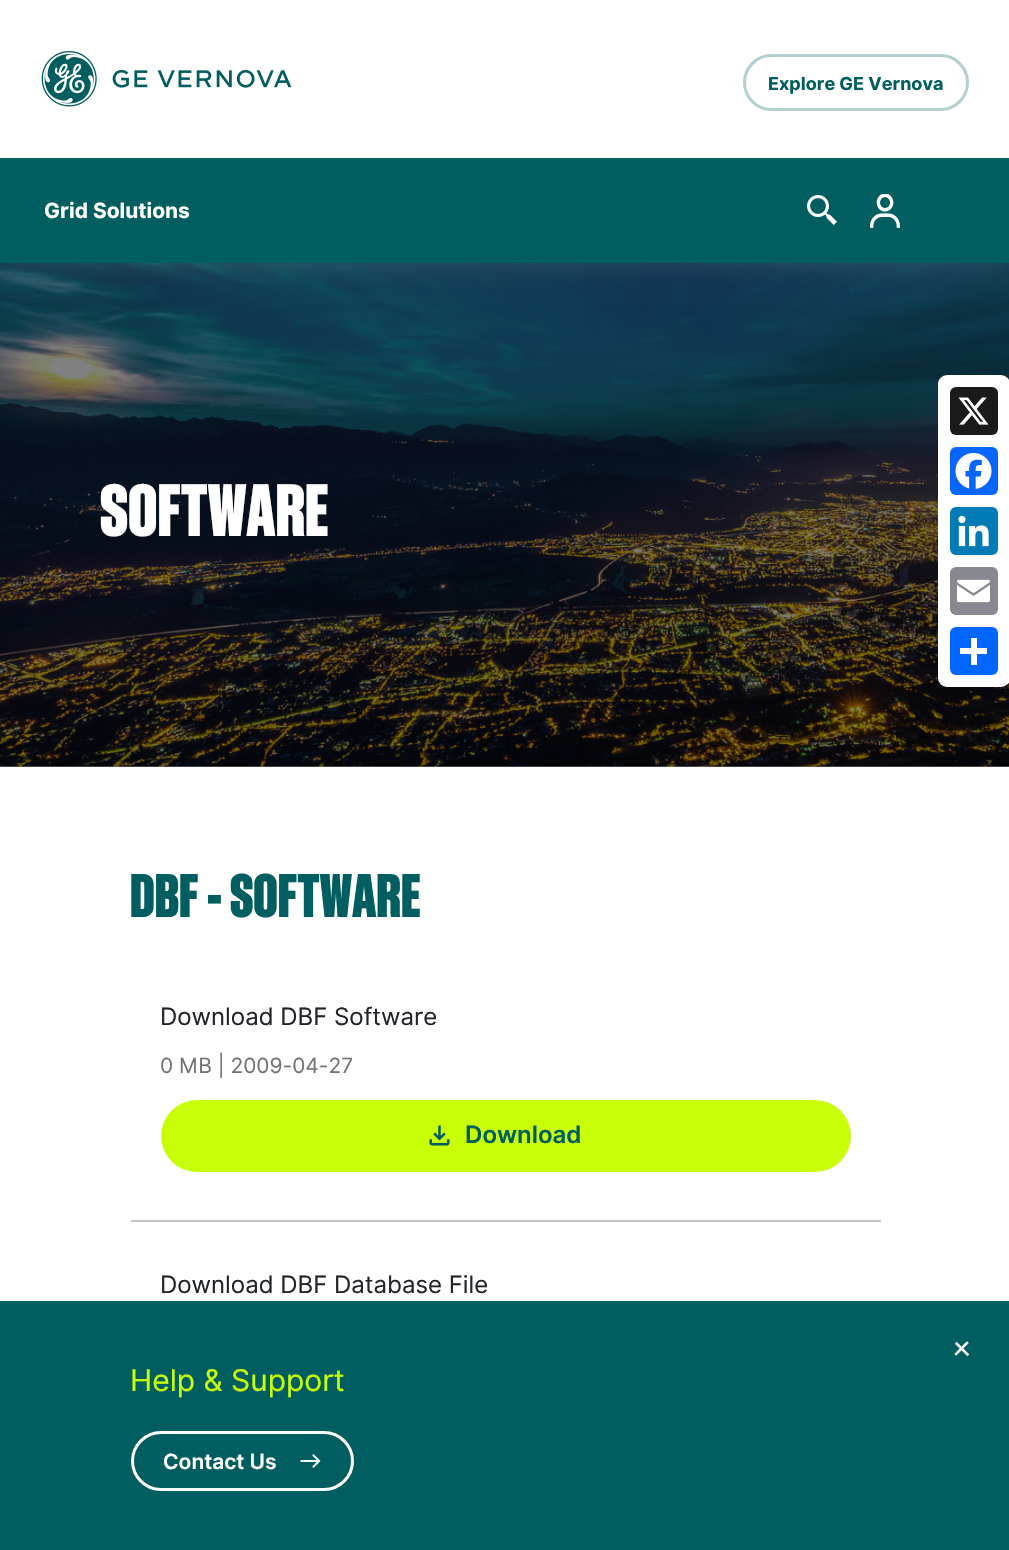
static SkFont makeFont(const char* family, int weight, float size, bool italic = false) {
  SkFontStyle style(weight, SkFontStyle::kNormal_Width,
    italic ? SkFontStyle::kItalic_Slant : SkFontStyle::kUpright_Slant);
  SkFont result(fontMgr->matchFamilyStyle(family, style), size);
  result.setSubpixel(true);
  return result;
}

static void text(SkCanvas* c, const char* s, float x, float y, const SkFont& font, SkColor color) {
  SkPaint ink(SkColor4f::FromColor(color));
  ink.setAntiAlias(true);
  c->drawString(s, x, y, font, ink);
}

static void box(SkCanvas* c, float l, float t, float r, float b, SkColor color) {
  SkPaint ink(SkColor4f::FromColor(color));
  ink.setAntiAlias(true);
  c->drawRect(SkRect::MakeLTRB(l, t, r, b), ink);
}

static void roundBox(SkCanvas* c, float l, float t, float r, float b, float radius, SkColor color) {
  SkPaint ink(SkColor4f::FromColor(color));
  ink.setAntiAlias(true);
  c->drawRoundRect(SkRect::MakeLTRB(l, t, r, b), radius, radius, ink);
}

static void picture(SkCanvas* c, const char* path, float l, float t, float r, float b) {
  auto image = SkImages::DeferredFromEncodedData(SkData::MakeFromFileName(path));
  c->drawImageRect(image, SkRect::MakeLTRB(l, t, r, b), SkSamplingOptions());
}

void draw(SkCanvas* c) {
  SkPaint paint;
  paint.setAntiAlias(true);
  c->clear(0xffffffff);
  box(c, 0, 766, 1009, 767, 0xff808080);
  picture(c, "img_04.png", 0, 263, 1009, 767);
  paint.setColor(0x26ffffff);
  paint.setMaskFilter(SkMaskFilter::MakeBlur(kNormal_SkBlurStyle, 13.5f));
  c->drawRect(SkRect::MakeLTRB(0, 0, 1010, 263), paint);
  paint.setMaskFilter(nullptr);
  picture(c, "img_01.png", 41, 51, 292, 107);
  paint.setStyle(SkPaint::kStroke_Style);
  paint.setStrokeWidth(3);
  paint.setColor(0xffb3cfcf);
  c->drawRoundRect(SkRect::MakeLTRB(744.5f, 55.5f, 967.5f, 109.5f), 27, 27, paint);
  SkFont face1 = makeFont("Inter", 700, 18);
  text(c, "Explore GE Vernova", 768, 90, face1, 0xff005e60);
  box(c, 0, 158, 1009, 263, 0xff005e60);
  SkFont face2 = makeFont("Inter", 700, 21);
  text(c, "Grid Solutions", 44, 218, face2, 0xffffffff);
  picture(c, "img_02.png", 807, 195, 837, 225);
  picture(c, "img_03.png", 870, 194, 900, 228);
  SkFont face3 = makeFont("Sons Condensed", 800, 72);
  text(c, "SOFTWARE", 100, 536, face3, 0xffffffff);
  roundBox(c, 938, 375, 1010, 687, 9, 0xffffffff);
  roundBox(c, 950, 387, 998, 435, 6, 0xff1a1a1a);
  picture(c, "img_05.png", 958, 397, 989, 425);
  roundBox(c, 950, 447, 998, 495, 6, 0xff0866ff);
  picture(c, "img_06.png", 955, 453, 992, 489);
  roundBox(c, 950, 507, 998, 555, 6, 0xff007bb5);
  picture(c, "img_07.png", 958, 515, 989, 547);
  roundBox(c, 950, 567, 998, 615, 6, 0xff888990);
  picture(c, "img_08.png", 957, 579, 990, 603);
  roundBox(c, 950, 627, 998, 675, 6, 0xff0166ff);
  box(c, 971, 638, 977, 665, 0xffffffff);
  box(c, 960, 648, 987, 654, 0xffffffff);
  SkFont face4 = makeFont("Sons Condensed", 800, 60);
  text(c, "DBF - SOFTWARE", 130, 917, face4, 0xff005e60);
  box(c, 131, 1220, 881, 1222, 0xffc3c3c3);
  SkFont face5 = makeFont("Inter", 400, 24);
  text(c, "Download DBF Software", 160, 1025, face5, 0xff212529);
  SkFont face6 = makeFont("Inter", 400, 21);
  text(c, "0 MB | 2009-04-27", 160, 1073, face6, 0xff737373);
  roundBox(c, 161, 1100, 851, 1172, 36, 0xffc8ff08);
  picture(c, "img_09.png", 429, 1125, 450, 1146);
  SkFont face7 = makeFont("Inter", 600, 24);
  text(c, "Download", 465, 1143, face7, 0xff005e60);
  text(c, "Download DBF Database File", 160, 1293, face5, 0xff212529);
  box(c, 0, 1301, 1009, 1550, 0xff005e60);
  picture(c, "img_10.png", 954, 1341, 970, 1357);
  SkFont face8 = makeFont("Inter", 400, 30);
  text(c, "Help & Support", 130, 1391, face8, 0xffc8ff08);
  paint.setColor(0xffffffff);
  c->drawRoundRect(SkRect::MakeLTRB(132.5f, 1432.5f, 352.5f, 1489.5f), 28.5f, 28.5f, paint);
  SkFont face9 = makeFont("Inter", 600, 21);
  text(c, "Contact Us", 163, 1469, face9, 0xffffffff);
  picture(c, "img_11.png", 300, 1454, 321, 1468);
}
